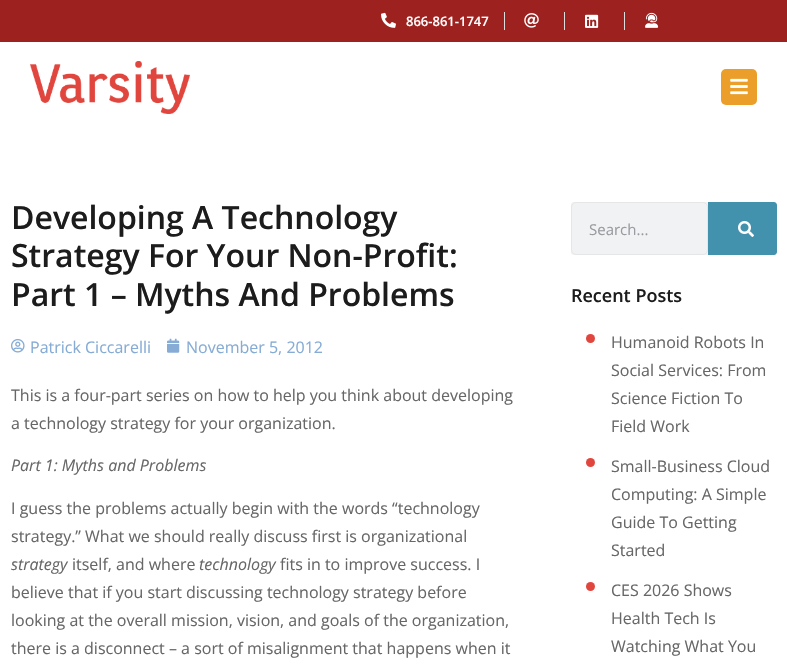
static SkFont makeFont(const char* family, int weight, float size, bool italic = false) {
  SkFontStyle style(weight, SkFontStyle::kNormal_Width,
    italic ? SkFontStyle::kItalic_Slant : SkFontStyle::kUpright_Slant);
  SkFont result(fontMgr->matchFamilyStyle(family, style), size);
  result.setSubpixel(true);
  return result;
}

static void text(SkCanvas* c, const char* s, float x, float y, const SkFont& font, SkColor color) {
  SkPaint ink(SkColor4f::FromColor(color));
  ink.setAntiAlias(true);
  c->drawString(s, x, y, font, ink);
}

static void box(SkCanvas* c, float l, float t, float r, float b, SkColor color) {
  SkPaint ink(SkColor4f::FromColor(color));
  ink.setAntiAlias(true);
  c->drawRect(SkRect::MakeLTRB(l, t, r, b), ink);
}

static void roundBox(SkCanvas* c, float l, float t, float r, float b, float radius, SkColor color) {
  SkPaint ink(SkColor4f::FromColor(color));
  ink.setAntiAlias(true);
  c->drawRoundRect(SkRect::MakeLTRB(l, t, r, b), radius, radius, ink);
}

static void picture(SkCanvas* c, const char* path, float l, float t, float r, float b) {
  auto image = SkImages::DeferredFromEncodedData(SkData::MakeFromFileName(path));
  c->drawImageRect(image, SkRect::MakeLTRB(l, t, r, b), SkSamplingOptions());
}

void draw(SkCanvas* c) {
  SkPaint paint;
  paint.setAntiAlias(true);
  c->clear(0xffffffff);
  box(c, 0, 0, 787, 42, 0xff9d221f);
  picture(c, "img_01.png", 381, 12, 396, 28);
  SkFont face1 = makeFont("Open Sans", 600, 13);
  text(c, "866-861-1747", 406, 26, face1, 0xffffffff);
  box(c, 504, 12, 505, 30, 0xffdddddd);
  picture(c, "img_02.png", 524, 13, 539, 28);
  box(c, 564, 12, 565, 30, 0xffdddddd);
  picture(c, "img_03.png", 585, 14, 599, 28);
  box(c, 624, 12, 625, 30, 0xffdddddd);
  picture(c, "img_04.png", 645, 12, 659, 28);
  picture(c, "img_05.png", 30, 61, 190, 114);
  roundBox(c, 721, 69, 757, 105, 5, 0xffeb9e29);
  picture(c, "img_06.png", 730, 78, 748, 95);
  SkFont face2 = makeFont("Open Sans", 600, 32);
  text(c, "Developing A Technology", 11, 229, face2, 0xff1c1c1c);
  text(c, "Strategy For Your Non-Profit:", 11, 267, face2, 0xff1c1c1c);
  text(c, "Part 1 – Myths And Problems", 11, 306, face2, 0xff1c1c1c);
  picture(c, "img_07.png", 11, 339, 25, 353);
  SkFont face3 = makeFont("Open Sans", 400, 16);
  text(c, "Patrick Ciccarelli", 30, 353, face3, 0xff86acd5);
  picture(c, "img_08.png", 167, 338, 180, 353);
  text(c, "November 5, 2012", 186, 353, face3, 0xff86acd5);
  text(c, "This is a four-part series on how to help you think about developing", 11, 401, face3, 0xff676767);
  text(c, "a technology strategy for your organization.", 11, 429, face3, 0xff676767);
  SkFont face4 = makeFont("Open Sans", 400, 16, true);
  text(c, "Part 1: Myths and Problems", 11, 471, face4, 0xff676767);
  text(c, "I guess the problems actually begin with the words “technology", 11, 514, face3, 0xff676767);
  text(c, "strategy.” What we should really discuss first is organizational", 11, 542, face3, 0xff676767);
  text(c, "strategy", 11, 570, face4, 0xff676767);
  text(c, "itself, and where", 72, 570, face3, 0xff676767);
  text(c, "technology", 199, 570, face4, 0xff676767);
  text(c, "fits in to improve success. I", 280, 570, face3, 0xff676767);
  text(c, "believe that if you start discussing technology strategy before", 11, 598, face3, 0xff676767);
  text(c, "looking at the overall mission, vision, and goals of the organization,", 11, 626, face3, 0xff676767);
  text(c, "there is a disconnect – a sort of misalignment that happens when it", 11, 654, face3, 0xff676767);
  roundBox(c, 571, 202, 777, 255, 3, 0xfff1f2f3);
  paint.setStyle(SkPaint::kStroke_Style);
  paint.setStrokeWidth(1);
  paint.setColor(0xffe6e6e6);
  c->drawRoundRect(SkRect::MakeLTRB(571.5f, 202.5f, 707.5f, 254.5f), 4.5f, 4.5f, paint);
  SkFont face5 = makeFont("Open Sans", 400, 15);
  text(c, "Search...", 589, 235, face5, 0xff989b9f);
  paint.setStyle(SkPaint::kFill_Style);
  paint.setColor(0xff4392ad);
  c->drawPath(SkPathBuilder().moveTo(708, 202).lineTo(774, 202).cubicTo(775.5f, 202, 777, 203.5f, 777, 205).lineTo(777, 252).cubicTo(777, 253.5f, 775.5f, 255, 774, 255).lineTo(708, 255).close().detach(), paint);
  picture(c, "img_09.png", 738, 221, 754, 237);
  SkFont face6 = makeFont("Open Sans", 600, 18);
  text(c, "Recent Posts", 571, 302, face6, 0xff1c1c1c);
  paint.setColor(0xffe1463e);
  c->drawCircle(590.5f, 338.5f, 4.5f, paint);
  text(c, "Humanoid Robots In", 611, 348, face3, 0xff676767);
  text(c, "Social Services: From", 611, 376, face3, 0xff676767);
  text(c, "Science Fiction To", 611, 404, face3, 0xff676767);
  text(c, "Field Work", 611, 432, face3, 0xff676767);
  c->drawCircle(590.5f, 462.5f, 4.5f, paint);
  text(c, "Small-Business Cloud", 611, 472, face3, 0xff676767);
  text(c, "Computing: A Simple", 611, 500, face3, 0xff676767);
  text(c, "Guide To Getting", 611, 528, face3, 0xff676767);
  text(c, "Started", 611, 556, face3, 0xff676767);
  c->drawCircle(590.5f, 586.5f, 4.5f, paint);
  text(c, "CES 2026 Shows", 611, 596, face3, 0xff676767);
  text(c, "Health Tech Is", 611, 624, face3, 0xff676767);
  text(c, "Watching What You", 611, 652, face3, 0xff676767);
}
